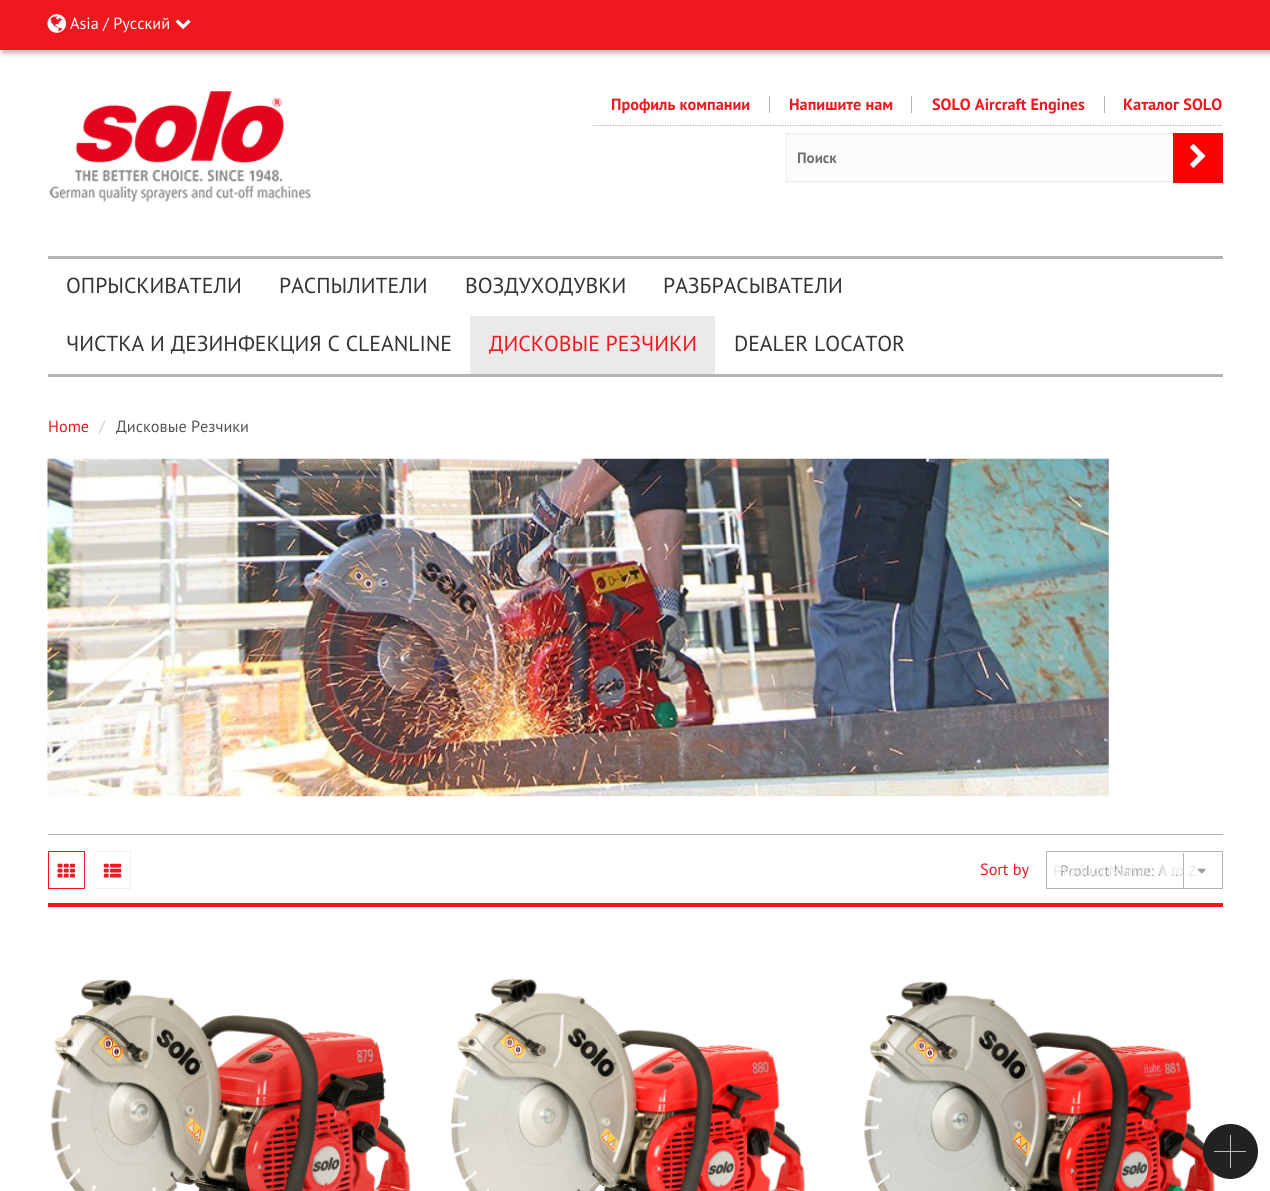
import math
import cairo

surface = cairo.ImageSurface(cairo.FORMAT_RGB24, 1270, 1191)
cr = cairo.Context(surface)
options = cairo.FontOptions()
options.set_hint_metrics(cairo.HINT_METRICS_OFF)
options.set_hint_style(cairo.HINT_STYLE_NONE)
cr.set_font_options(options)
cr.set_miter_limit(4)


def rgb(code):
    cr.set_source_rgb(*(v / 255 for v in bytes.fromhex(code[-6:])))


def rrect(x, y, w, h, r):
    cr.new_sub_path()
    for i, (u, v) in enumerate([(x + w - r, y + h - r), (x + r, y + h - r), (x + r, y + r), (x + w - r, y + r)]):
        cr.arc(u, v, r, i * math.pi / 2, (i + 1) * math.pi / 2)
    cr.close_path()


def soft_shadow(x, y, w, h, r, blur, alpha):
    cr.push_group_with_content(cairo.CONTENT_ALPHA)
    cr.set_operator(cairo.OPERATOR_SOURCE)
    for i in range(15, -16, -2):
        e = blur * i / 6
        if min(w, h) + 2 * e > 0:
            cr.set_source_rgba(0, 0, 0, alpha * math.erfc((i - 1) / 8.5) / 2)
            rrect(x - e, y - e, w + 2 * e, h + 2 * e, max(0, min(r + e + blur * .6, min(w, h) / 2 + e)))
            cr.fill()
    cr.mask(cr.pop_group())


def image(path, x, y, w, h):
    cr.save()
    cr.set_source_surface(cairo.ImageSurface.create_from_png(path), x, y)
    cr.rectangle(x, y, w, h)
    cr.fill()
    cr.restore()


rgb("#ffffff")
cr.paint()
rgb("#b1b3b4")
soft_shadow(3, 3, 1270, 50, 0, 3, 1)
rgb("#ef181e")
cr.rectangle(0, 0, 1270, 50)
cr.fill()
image("img/1.png", 47, 14, 20, 19)
image("img/2.png", 175, 19, 16, 10)
image("img/3.png", 49, 91, 262, 111)
cr.new_path()
cr.move_to(592.5, 125.5)
cr.line_to(1222.5, 125.5)
rgb("#b1b3b4")
cr.set_line_width(1.2)
cr.set_dash([1.25, 1.25])
cr.stroke()
for x, y, w, h, color in [
    (769, 96, 1, 17, "#b1b3b4"),
    (911, 96, 1, 17, "#b1b3b4"),
    (1104, 96, 1, 17, "#b1b3b4"),
    (787, 134, 386, 49, "#fcfcfc"),
    (786, 133, 387, 1, "#ececec"),
    (786, 181, 387, 1, "#ececec"),
    (786, 133, 1, 50, "#ececec"),
    (1173, 133, 50, 50, "#ff0000"),
]:
    rgb(color)
    cr.rectangle(x, y, w, h)
    cr.fill()
image("img/4.png", 1190, 144, 16, 24)
for x, y, w, h, color in [
    (48, 256, 1175, 3, "#b1b3b4"),
    (48, 374, 1175, 3, "#b1b3b4"),
    (470, 316, 245, 58, "#eaeaea"),
    (48, 834, 1175, 1, "#b1b3b4"),
]:
    rgb(color)
    cr.rectangle(x, y, w, h)
    cr.fill()
image("img/5.png", 47, 458, 1062, 339)
rgb("#ef181e")
cr.rectangle(48, 903, 1175, 4)
cr.fill()
cr.rectangle(48.5, 851.5, 36, 37)
cr.set_line_width(1)
cr.set_dash([])
cr.stroke()
image("img/6.png", 57, 863, 18, 15)
cr.rectangle(94.5, 851.5, 36, 37)
rgb("#efefef")
cr.stroke()
image("img/7.png", 103, 863, 19, 15)
cr.rectangle(1046.5, 851.5, 176, 37)
rgb("#b1b3b4")
cr.stroke()
image("img/8.png", 1197, 868, 9, 6)
cr.new_path()
cr.move_to(1206, 869)
cr.line_to(1211, 874)
cr.line_to(1216, 869)
rgb("#ffffff")
cr.set_line_width(2.5)
cr.stroke()
rgb("#b1b3b4")
cr.rectangle(1183, 853, 1, 35)
cr.fill()
image("img/9.png", 50, 979, 361, 212)
image("img/10.png", 451, 979, 354, 212)
image("img/11.png", 864, 981, 351, 210)
rgb("#222222")
cr.arc(1230.5, 1151.5, 27.5, 0, 2 * math.pi)
cr.fill()
for x, y, w, h, color in [
    (1214, 1151, 32, 1, "#bdbdbd"),
    (1230, 1135, 1, 33, "#bdbdbd"),
    (1230, 1151, 1, 1, "#ebebeb"),
]:
    rgb(color)
    cr.rectangle(x, y, w, h)
    cr.fill()
cr.select_font_face("PT Sans")
cr.set_font_size(16.25)
rgb("#ffffff")
cr.move_to(70, 29)
cr.show_text("Asia / Русский")
cr.select_font_face("PT Sans", cairo.FONT_SLANT_NORMAL, cairo.FONT_WEIGHT_BOLD)
rgb("#ef181e")
for x, y, s in [
    (611, 110, "Профиль компании"),
    (789, 110, "Напишите нам"),
    (932, 110, "SOLO Aircraft Engines"),
    (1123, 110, "Каталог SOLO"),
]:
    cr.move_to(x, y)
    cr.show_text(s)
cr.save()
cr.rectangle(798, 148, 325, 18)
cr.clip()
cr.set_font_size(15)
rgb("#6f6e73")
cr.move_to(797, 163)
cr.show_text("Поиск")
cr.restore()
cr.select_font_face("PT Sans")
cr.set_font_size(21.7)
rgb("#333333")
for x, y, s in [
    (66, 293, "ОПРЫСКИВАТЕЛИ"),
    (279, 293, "РАСПЫЛИТЕЛИ"),
    (465, 293, "ВОЗДУХОДУВКИ"),
    (663, 293, "РАЗБРАСЫВАТЕЛИ"),
    (66, 351, "ЧИСТКА И ДЕЗИНФЕКЦИЯ С CLEANLINE"),
]:
    cr.move_to(x, y)
    cr.show_text(s)
rgb("#ef181e")
cr.move_to(489, 351)
cr.show_text("ДИСКОВЫЕ РЕЗЧИКИ")
rgb("#333333")
cr.move_to(734, 351)
cr.show_text("DEALER LOCATOR")
cr.set_font_size(16.25)
rgb("#ef181e")
cr.move_to(48, 432)
cr.show_text("Home")
rgb("#cccccc")
cr.move_to(99, 432)
cr.show_text("/")
rgb("#555555")
cr.move_to(116, 432)
cr.show_text("Дисковые Резчики")
rgb("#ef181e")
cr.move_to(980, 875)
cr.show_text("Sort by")
cr.set_font_size(15)
rgb("#9f9f9f")
cr.move_to(1060, 876)
cr.show_text("Product Name: A …")
cr.select_font_face("Liberation Sans")
rgb("#e8e8e8")
cr.move_to(1053, 876)
cr.show_text("Product Name: A to Z")
surface.write_to_png("page.png")
